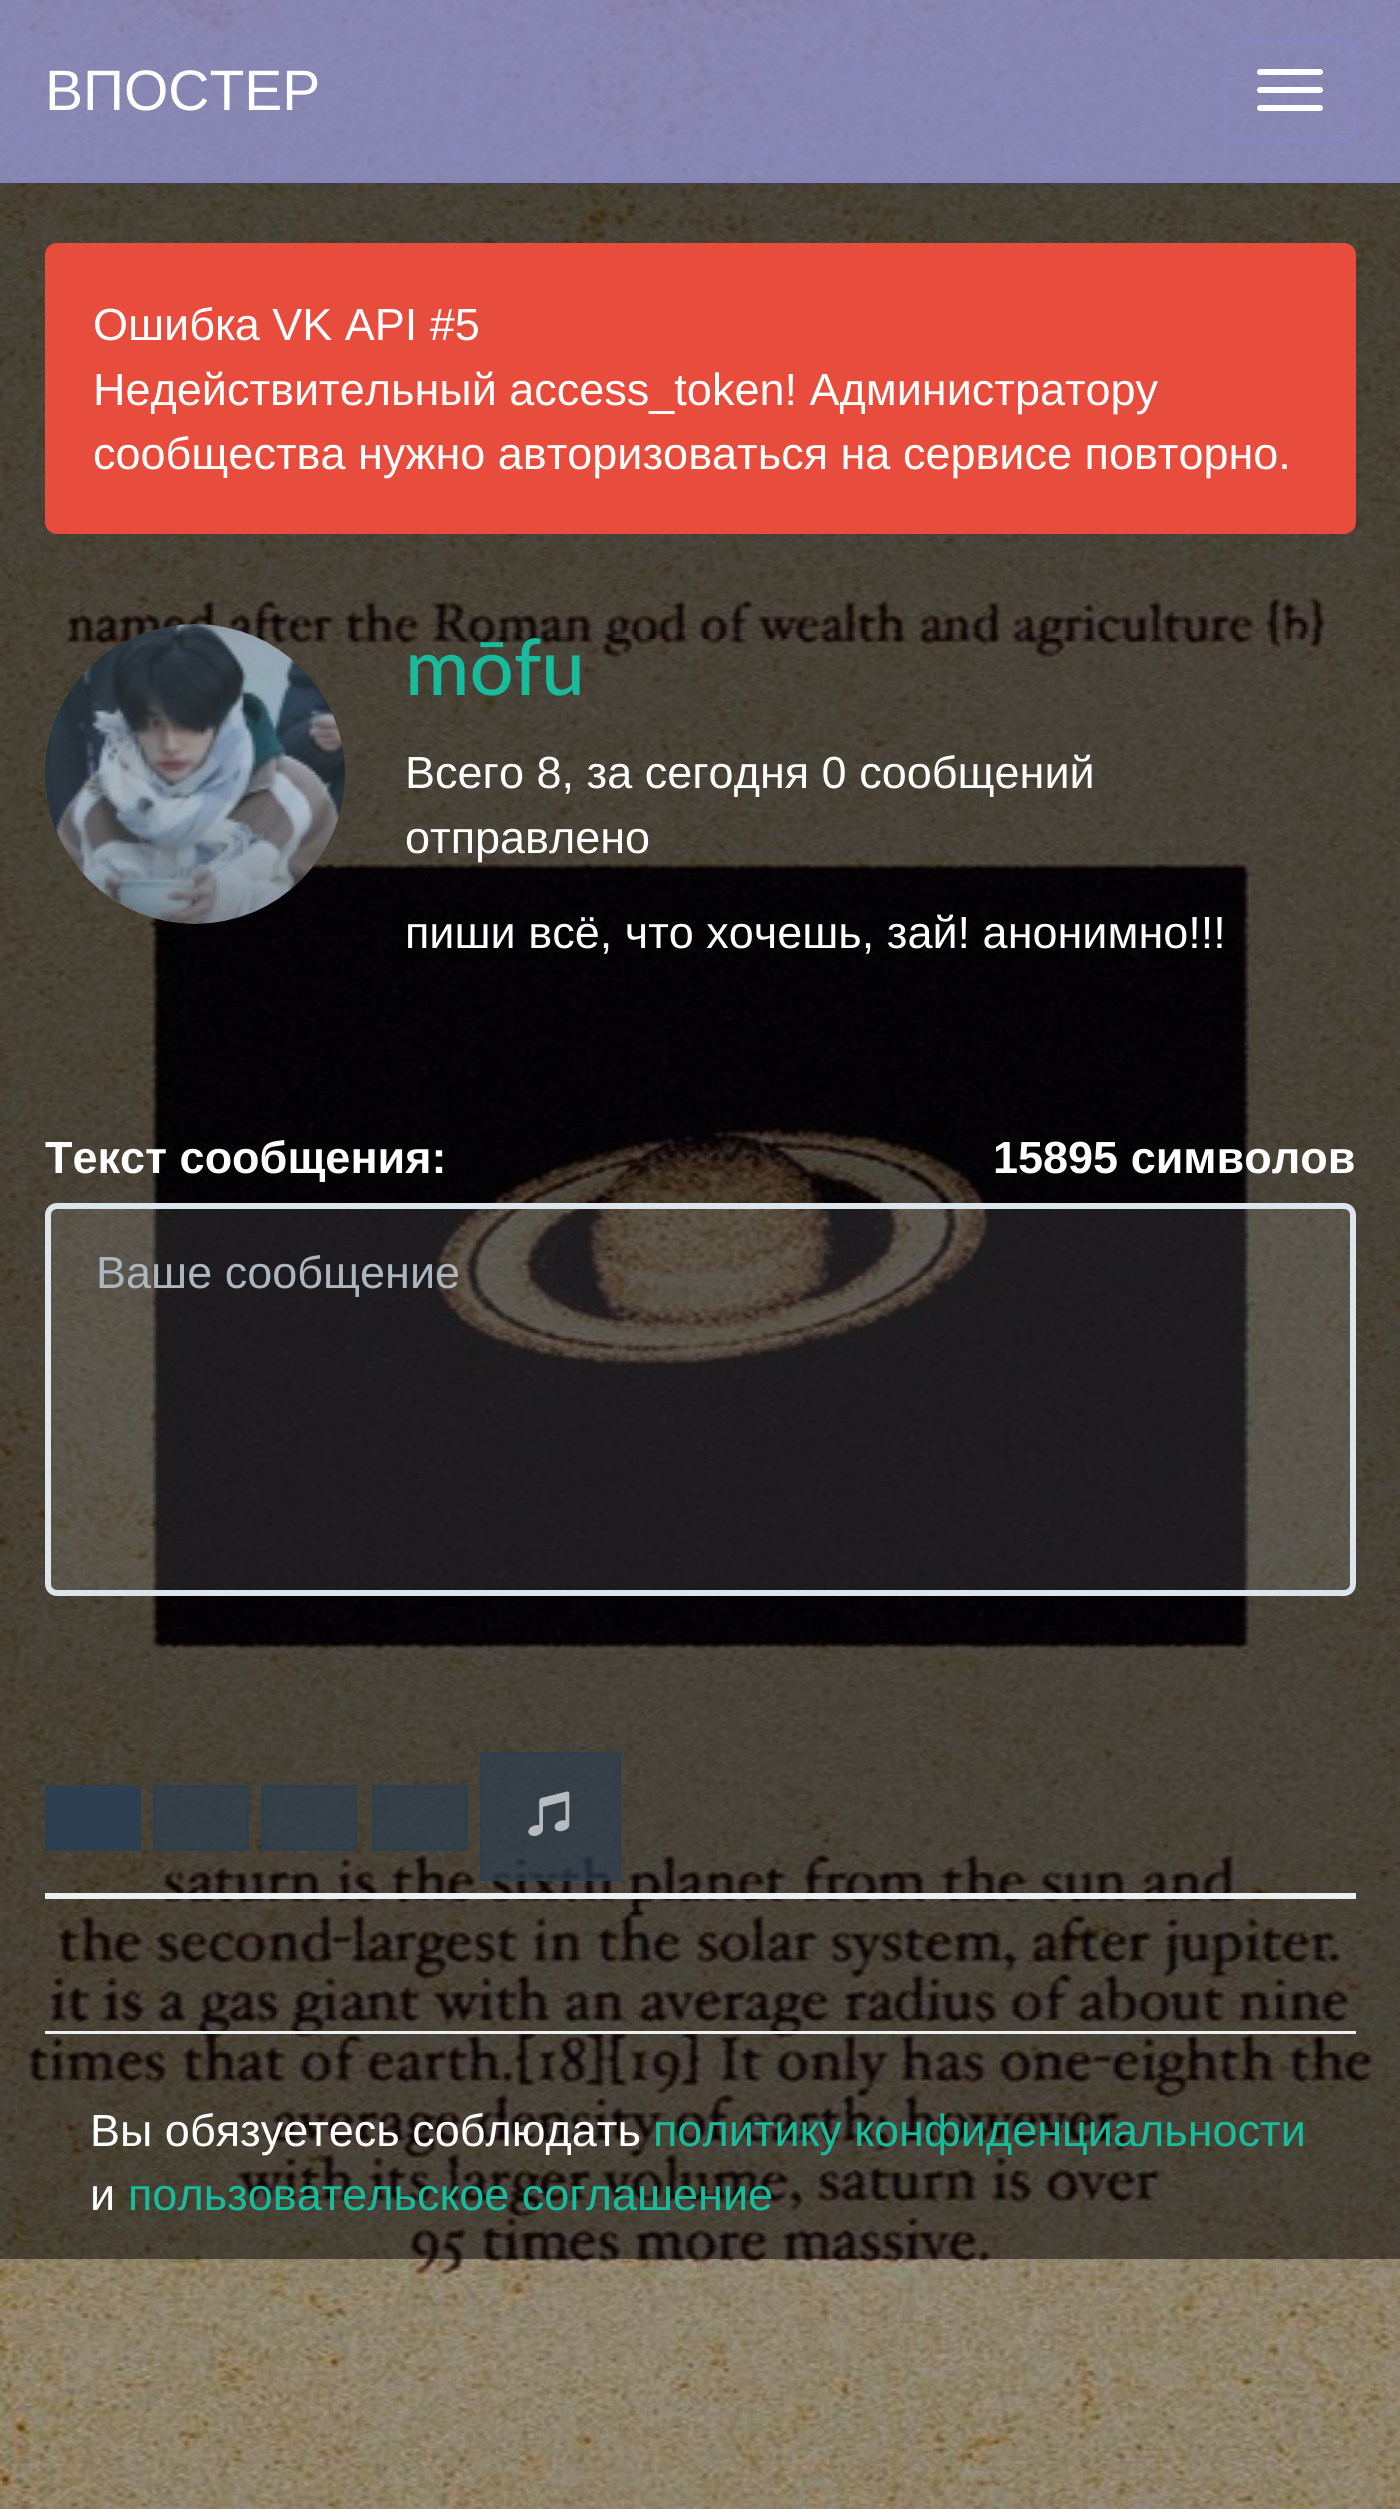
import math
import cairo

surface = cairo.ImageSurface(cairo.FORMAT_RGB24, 1400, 2509)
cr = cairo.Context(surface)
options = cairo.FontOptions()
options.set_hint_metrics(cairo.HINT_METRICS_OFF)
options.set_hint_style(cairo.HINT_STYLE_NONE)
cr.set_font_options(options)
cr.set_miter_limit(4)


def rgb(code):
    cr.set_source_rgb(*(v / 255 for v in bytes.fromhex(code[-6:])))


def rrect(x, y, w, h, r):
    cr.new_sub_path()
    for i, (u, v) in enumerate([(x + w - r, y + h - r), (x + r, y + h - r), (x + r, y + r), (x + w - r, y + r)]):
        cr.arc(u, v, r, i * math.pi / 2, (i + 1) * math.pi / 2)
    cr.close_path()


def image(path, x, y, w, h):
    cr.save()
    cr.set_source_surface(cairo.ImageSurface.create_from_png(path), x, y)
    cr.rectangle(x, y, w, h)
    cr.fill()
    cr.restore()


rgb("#ffffff")
cr.paint()
image("img/1.png", 0, 0, 1400, 2509)
cr.set_source_rgba(0, 0, 0, 0.5)
cr.rectangle(0, 180, 1400, 2079)
cr.fill()
cr.set_source_rgba(0.525, 0.529, 0.765, 0.82)
cr.rectangle(0, 0, 1400, 183)
cr.fill()
cr.rectangle(0, 180, 1400, 3)
cr.fill()
rrect(1225.5, 40.5, 129, 99, 10.5)
cr.set_line_width(3)
cr.stroke()
rgb("#ffffff")
rrect(1257, 69, 66, 6, 3)
cr.fill()
rrect(1257, 87, 66, 6, 3)
cr.fill()
rrect(1257, 105, 66, 6, 3)
cr.fill()
rgb("#e74c3c")
rrect(46.5, 244.5, 1308, 288, 10.5)
cr.fill_preserve()
cr.stroke()
image("img/2.png", 45, 624, 300, 300)
cr.set_source_rgba(1, 1, 1, 0.1)
rrect(48, 1206, 1305, 387, 9)
cr.fill_preserve()
rgb("#dce4ec")
cr.set_line_width(6)
cr.stroke()
rgb("#2c3e50")
cr.rectangle(45, 1785, 96, 66)
cr.fill()
cr.set_source_rgba(0.173, 0.243, 0.314, 0.65)
cr.rectangle(153, 1785, 96, 66)
cr.fill()
cr.rectangle(154.5, 1786.5, 93, 63)
cr.set_line_width(3)
cr.stroke()
cr.rectangle(261, 1785, 96, 66)
cr.fill()
cr.rectangle(262.5, 1786.5, 93, 63)
cr.stroke()
cr.rectangle(372, 1785, 96, 66)
cr.fill()
cr.rectangle(373.5, 1786.5, 93, 63)
cr.stroke()
cr.rectangle(480, 1752, 141, 129)
cr.fill()
cr.rectangle(481.5, 1753.5, 138, 126)
cr.stroke()
image("img/3.png", 528, 1791, 42, 45)
rgb("#ecf0f1")
cr.rectangle(45, 1893, 1311, 6)
cr.fill()
cr.rectangle(45, 2031, 1311, 3)
cr.fill()
cr.select_font_face("Liberation Sans")
cr.set_font_size(57)
rgb("#ffffff")
cr.move_to(45, 110)
cr.show_text("ВПОСТЕР")
cr.set_font_size(45)
for x, y, s in [
    (93, 340, "Ошибка VK API #5"),
    (93, 405, "Недействительный access_token! Администратору"),
    (93, 469, "сообщества нужно авторизоваться на сервисе повторно."),
]:
    cr.move_to(x, y)
    cr.show_text(s)
cr.select_font_face("Lato Medium")
cr.set_font_size(78)
rgb("#18bc9c")
cr.move_to(405, 695)
cr.show_text("mōfu")
cr.select_font_face("Liberation Sans")
cr.set_font_size(45)
rgb("#ffffff")
for x, y, s in [
    (405, 788, "Всего 8, за сегодня 0 сообщений"),
    (405, 853, "отправлено"),
    (405, 948, "пиши всё, что хочешь, зай! анонимно!!!"),
]:
    cr.move_to(x, y)
    cr.show_text(s)
cr.select_font_face("Liberation Sans", cairo.FONT_SLANT_NORMAL, cairo.FONT_WEIGHT_BOLD)
cr.move_to(45, 1173)
cr.show_text("Текст сообщения:")
cr.move_to(993, 1173)
cr.show_text("15895 символов")
cr.select_font_face("Liberation Sans")
rgb("#acb6c0")
cr.move_to(96, 1288)
cr.show_text("Ваше сообщение")
rgb("#ffffff")
cr.move_to(90, 2146)
cr.show_text("Вы обязуетесь соблюдать")
rgb("#18bc9c")
cr.move_to(653, 2146)
cr.show_text("политику конфиденциальности")
rgb("#ffffff")
cr.move_to(90, 2210)
cr.show_text("и")
rgb("#18bc9c")
cr.move_to(128, 2210)
cr.show_text("пользовательское соглашение")
surface.write_to_png("page.png")
